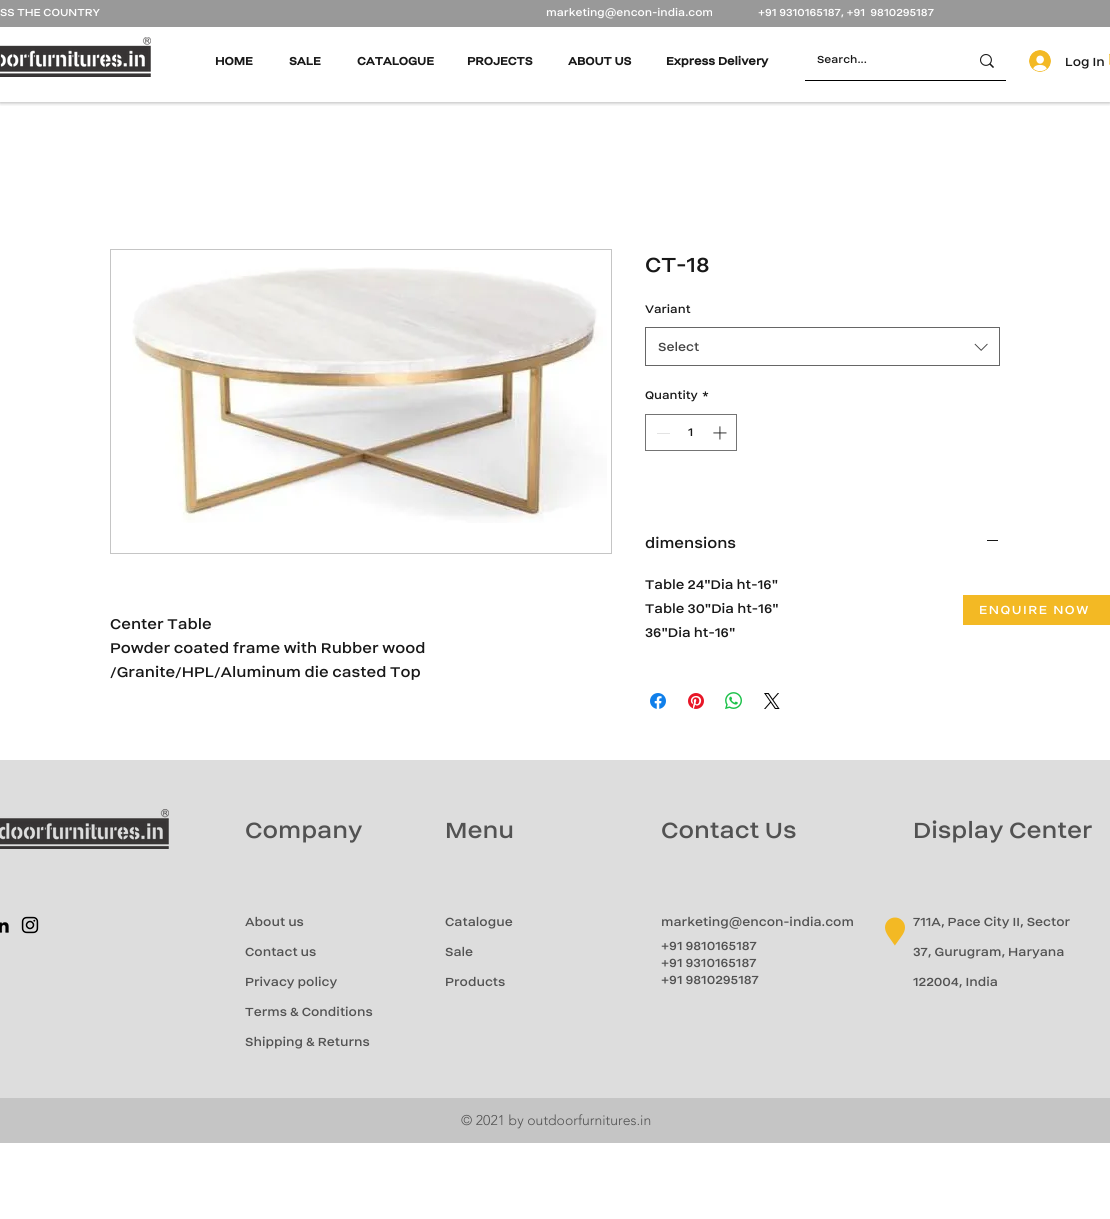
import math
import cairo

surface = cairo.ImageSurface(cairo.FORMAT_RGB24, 1110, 1219)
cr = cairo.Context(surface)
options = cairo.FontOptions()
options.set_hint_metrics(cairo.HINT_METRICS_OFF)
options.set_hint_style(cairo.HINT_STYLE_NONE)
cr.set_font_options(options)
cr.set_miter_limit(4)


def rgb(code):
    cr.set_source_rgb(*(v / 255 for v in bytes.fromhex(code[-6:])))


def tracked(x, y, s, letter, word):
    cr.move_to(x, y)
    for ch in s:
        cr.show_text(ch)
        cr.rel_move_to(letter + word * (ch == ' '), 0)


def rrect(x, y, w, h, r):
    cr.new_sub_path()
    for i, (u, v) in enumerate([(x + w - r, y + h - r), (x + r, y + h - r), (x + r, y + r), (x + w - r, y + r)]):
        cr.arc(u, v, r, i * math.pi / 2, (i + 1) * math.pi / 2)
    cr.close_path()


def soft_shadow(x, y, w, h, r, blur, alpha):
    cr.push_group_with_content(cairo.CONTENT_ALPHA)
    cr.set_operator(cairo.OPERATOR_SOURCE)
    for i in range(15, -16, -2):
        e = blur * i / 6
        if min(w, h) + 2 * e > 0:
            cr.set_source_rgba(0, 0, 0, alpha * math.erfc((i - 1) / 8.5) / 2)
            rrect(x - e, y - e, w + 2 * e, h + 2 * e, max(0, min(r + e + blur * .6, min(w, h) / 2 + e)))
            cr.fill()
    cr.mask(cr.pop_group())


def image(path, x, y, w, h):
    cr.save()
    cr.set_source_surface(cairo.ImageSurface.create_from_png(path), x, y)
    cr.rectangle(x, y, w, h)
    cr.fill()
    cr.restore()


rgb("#ffffff")
cr.paint()
cr.save()
cr.rectangle(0, 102, 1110, 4)
cr.clip()
rgb("#000000")
soft_shadow(0, 1, 1110, 102, 0, 2, 0.29)
cr.restore()
rgb("#999999")
cr.rectangle(0, 0, 1110, 27)
cr.fill()
image("img/1.png", 0, 37, 151, 40)
rgb("#000000")
cr.rectangle(805, 80, 201, 1)
cr.fill()
image("img/2.png", 980, 54, 14, 14)
image("img/3.png", 1029, 50, 22, 22)
image("img/4.png", 1109, 53, 1, 12)
cr.rectangle(645.5, 327.5, 354, 38)
rgb("#666666")
cr.set_line_width(1)
cr.stroke()
image("img/5.png", 974, 343, 14, 8)
cr.rectangle(645.5, 414.5, 91, 36)
rgb("#747474")
cr.stroke()
rgb("#e3e3e3")
cr.rectangle(657, 433, 13, 1)
cr.fill()
image("img/6.png", 713, 426, 14, 14)
rgb("#181818")
cr.rectangle(987, 540, 11, 1)
cr.fill()
image("img/7.png", 650, 693, 16, 16)
image("img/8.png", 688, 693, 16, 16)
image("img/9.png", 725, 692, 17, 17)
image("img/10.png", 764, 693, 16, 16)
cr.rectangle(110.5, 249.5, 501, 304)
rgb("#c5c5c5")
cr.stroke()
image("img/11.png", 132, 267, 475, 256)
rgb("#f3b924")
cr.rectangle(963, 595, 147, 30)
cr.fill()
rgb("#dddddd")
cr.rectangle(0, 760, 1110, 338)
cr.fill()
image("img/12.png", 0, 809, 169, 40)
image("img/13.png", 0, 922, 9, 11)
image("img/14.png", 21, 916, 18, 18)
image("img/15.png", 885, 917, 20, 29)
rgb("#c5c5c5")
cr.rectangle(0, 1098, 1110, 45)
cr.fill()
cr.select_font_face("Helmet")
cr.set_font_size(13)
rgb("#ffffff")
for x, y, s in [
    (0, 16, "SS THE COUNTRY"),
    (546, 16, "marketing@encon-india.com"),
    (758, 16, "+91 9310165187, +91  9810295187"),
]:
    cr.move_to(x, y)
    cr.show_text(s)
cr.select_font_face("Helmet", cairo.FONT_SLANT_NORMAL, cairo.FONT_WEIGHT_BOLD)
cr.set_font_size(14)
rgb("#181818")
for x, y, s in [
    (215, 65, "HOME"),
    (289, 65, "SALE"),
    (357, 65, "CATALOGUE"),
    (467, 65, "PROJECTS"),
    (568, 65, "ABOUT US"),
    (666, 65, "Express Delivery"),
]:
    cr.move_to(x, y)
    cr.show_text(s)
cr.select_font_face("Helmet")
cr.set_font_size(13)
cr.move_to(817, 63)
cr.show_text("Search...")
cr.set_font_size(15)
cr.move_to(1065, 66)
cr.show_text("Log In")
cr.set_font_size(26)
cr.move_to(645, 272)
cr.show_text("CT-18")
cr.set_font_size(14)
cr.move_to(645, 313)
cr.show_text("Variant")
cr.set_font_size(15)
rgb("#444444")
cr.move_to(658, 351)
cr.show_text("Select")
cr.set_font_size(14)
rgb("#181818")
for x, y, s in [
    (645, 399, "Quantity"),
    (702, 399, "*"),
    (688, 436, "1"),
]:
    cr.move_to(x, y)
    cr.show_text(s)
cr.set_font_size(18)
cr.move_to(645, 548)
cr.show_text("dimensions")
cr.set_font_size(16)
for x, y, s in [
    (645, 589, "Table 24\"Dia ht-16\""),
    (645, 613, "Table 30\"Dia ht-16\""),
    (645, 637, "36\"Dia ht-16\""),
]:
    cr.move_to(x, y)
    cr.show_text(s)
cr.set_font_size(18)
for x, y, s in [
    (110, 629, "Center Table"),
    (110, 653, "Powder coated frame with Rubber wood"),
    (110, 677, "/Granite/HPL/Aluminum die casted Top"),
]:
    cr.move_to(x, y)
    cr.show_text(s)
cr.set_font_size(15)
rgb("#ffffff")
tracked(979, 614, "ENQUIRE NOW", 1.5, 0)
cr.set_font_size(28)
rgb("#525252")
for x, y, s in [
    (245, 838, "Company"),
    (445, 838, "Menu"),
    (661, 838, "Contact Us"),
    (913, 838, "Display Center"),
]:
    cr.move_to(x, y)
    cr.show_text(s)
cr.set_font_size(15)
for x, y, s in [
    (245, 926, "About us"),
    (245, 956, "Contact us"),
    (245, 986, "Privacy policy"),
    (245, 1016, "Terms & Conditions"),
    (245, 1046, "Shipping & Returns"),
    (445, 926, "Catalogue"),
    (445, 956, "Sale"),
    (445, 986, "Products"),
    (661, 926, "marketing@encon-india.com"),
    (661, 950, "+91 9810165187"),
    (661, 967, "+91 9310165187"),
    (661, 984, "+91 9810295187"),
    (913, 926, "711A, Pace City II, Sector"),
    (913, 956, "37, Gurugram, Haryana"),
    (913, 986, "122004, India"),
]:
    cr.move_to(x, y)
    cr.show_text(s)
cr.select_font_face("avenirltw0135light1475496 Light")
cr.set_font_size(14)
cr.move_to(461, 1125)
cr.show_text("© 2021 by outdoorfurnitures.in")
surface.write_to_png("page.png")
